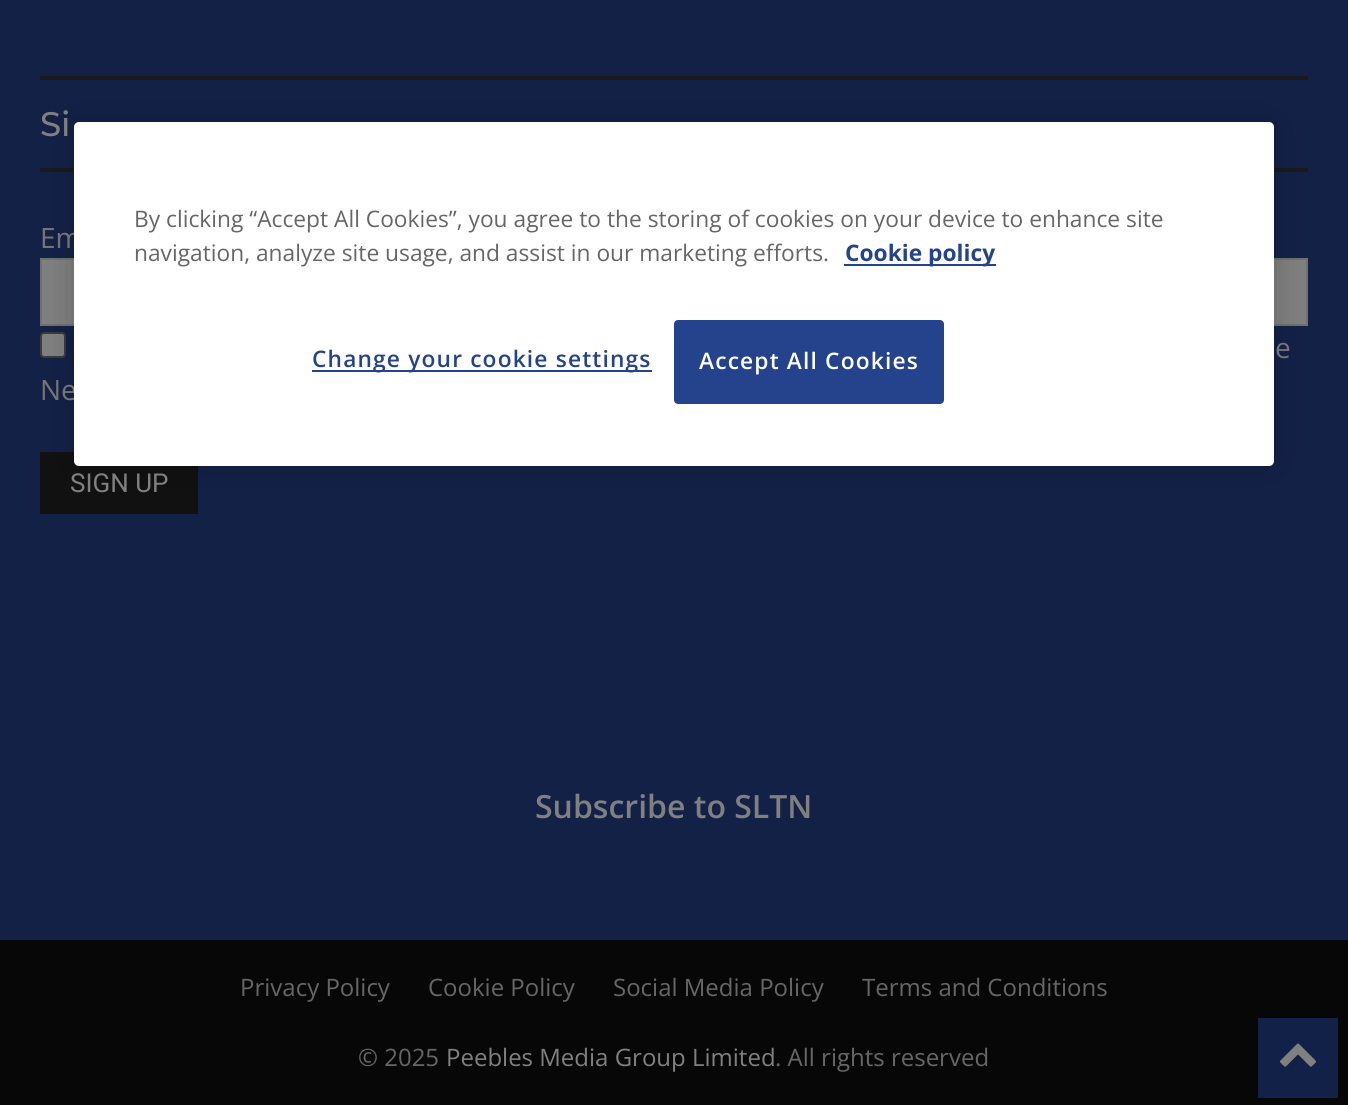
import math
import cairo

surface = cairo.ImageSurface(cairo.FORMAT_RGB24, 1348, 1105)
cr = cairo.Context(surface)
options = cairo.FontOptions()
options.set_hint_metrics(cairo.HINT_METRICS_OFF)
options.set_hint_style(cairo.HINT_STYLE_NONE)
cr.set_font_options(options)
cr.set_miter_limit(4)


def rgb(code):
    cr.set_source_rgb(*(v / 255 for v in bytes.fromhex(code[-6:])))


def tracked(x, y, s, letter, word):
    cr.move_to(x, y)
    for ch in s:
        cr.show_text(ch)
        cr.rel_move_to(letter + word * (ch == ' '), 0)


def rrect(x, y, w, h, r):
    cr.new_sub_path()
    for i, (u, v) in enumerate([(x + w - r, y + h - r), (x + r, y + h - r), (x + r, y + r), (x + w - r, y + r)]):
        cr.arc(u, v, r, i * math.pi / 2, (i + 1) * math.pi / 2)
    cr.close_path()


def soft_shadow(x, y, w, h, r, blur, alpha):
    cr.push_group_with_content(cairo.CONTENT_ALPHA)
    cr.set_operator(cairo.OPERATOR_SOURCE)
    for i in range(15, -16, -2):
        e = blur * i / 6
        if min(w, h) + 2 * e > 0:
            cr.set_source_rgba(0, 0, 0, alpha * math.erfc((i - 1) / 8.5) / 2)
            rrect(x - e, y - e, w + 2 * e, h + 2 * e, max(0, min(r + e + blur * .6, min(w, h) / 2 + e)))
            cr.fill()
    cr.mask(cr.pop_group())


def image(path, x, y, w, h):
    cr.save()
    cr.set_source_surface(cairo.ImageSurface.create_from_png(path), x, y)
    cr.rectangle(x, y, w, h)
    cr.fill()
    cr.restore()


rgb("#070707")
cr.paint()
for x, y, w, h, color in [
    (0, 0, 1348, 940, "#142147"),
    (40, 76, 1268, 4, "#1a1a1a"),
    (40, 168, 1268, 4, "#1a1a1a"),
]:
    rgb(color)
    cr.rectangle(x, y, w, h)
    cr.fill()
rgb("#808080")
cr.rectangle(41, 259, 1266, 66)
cr.fill_preserve()
rgb("#717171")
cr.stroke()
rgb("#808080")
rrect(41, 333, 24, 24, 3)
cr.fill_preserve()
rgb("#3b3b3b")
cr.stroke()
rgb("#111111")
cr.rectangle(40, 452, 158, 62)
cr.fill()
rgb("#000000")
soft_shadow(74, 122, 1200, 344, 5, 18, 0.2)
rgb("#122148")
cr.rectangle(1258, 1018, 80, 80)
cr.fill()
image("img/1.png", 1280, 1043, 36, 24)
cr.select_font_face("Montserrat Medium")
cr.set_font_size(34)
rgb("#808080")
cr.move_to(40, 136)
cr.show_text("Si")
cr.select_font_face("Open Sans")
cr.set_font_size(28)
rgb("#757575")
for x, y, s in [
    (40, 248, "Em"),
    (1275, 358, "e"),
    (40, 400, "Ne"),
]:
    cr.move_to(x, y)
    cr.show_text(s)
cr.select_font_face("Roboto")
cr.set_font_size(26)
rgb("#808080")
cr.move_to(70, 492)
cr.show_text("SIGN UP")
cr.select_font_face("Open Sans SemiBold")
cr.set_font_size(32)
cr.move_to(535, 818)
cr.show_text("Subscribe to SLTN")
cr.select_font_face("Open Sans")
cr.set_font_size(24)
rgb("#666666")
for x, y, s in [
    (240, 996, "Privacy Policy"),
    (428, 996, "Cookie Policy"),
    (613, 996, "Social Media Policy"),
    (862, 996, "Terms and Conditions"),
    (358, 1066, "© 2025"),
]:
    cr.move_to(x, y)
    cr.show_text(s)
rgb("#808080")
cr.move_to(446, 1066)
cr.show_text("Peebles Media Group Limited")
rgb("#666666")
cr.move_to(775, 1066)
cr.show_text(". All rights reserved")
rgb("#ffffff")
rrect(74, 122, 1200, 344, 5)
cr.fill()
cr.set_font_size(22.75)
rgb("#666666")
cr.move_to(134, 227)
cr.show_text("By clicking “Accept All Cookies”, you agree to the storing of cookies on your device to enhance site")
cr.move_to(134, 261)
cr.show_text("navigation, analyze site usage, and assist in our marketing efforts.")
rgb("#25438d")
cr.rectangle(844, 264, 152, 2)
cr.fill()
cr.select_font_face("Open Sans", cairo.FONT_SLANT_NORMAL, cairo.FONT_WEIGHT_BOLD)
cr.move_to(845, 261)
cr.show_text("Cookie policy")
cr.rectangle(312, 370, 340, 2)
cr.fill()
cr.select_font_face("Open Sans SemiBold")
tracked(312, 367, "Change your cookie settings", 1.15, 0)
rrect(675, 321, 268, 82, 3)
cr.fill_preserve()
cr.stroke()
rgb("#ffffff")
tracked(699, 369, "Accept All Cookies", 1.15, 0)
surface.write_to_png("page.png")
